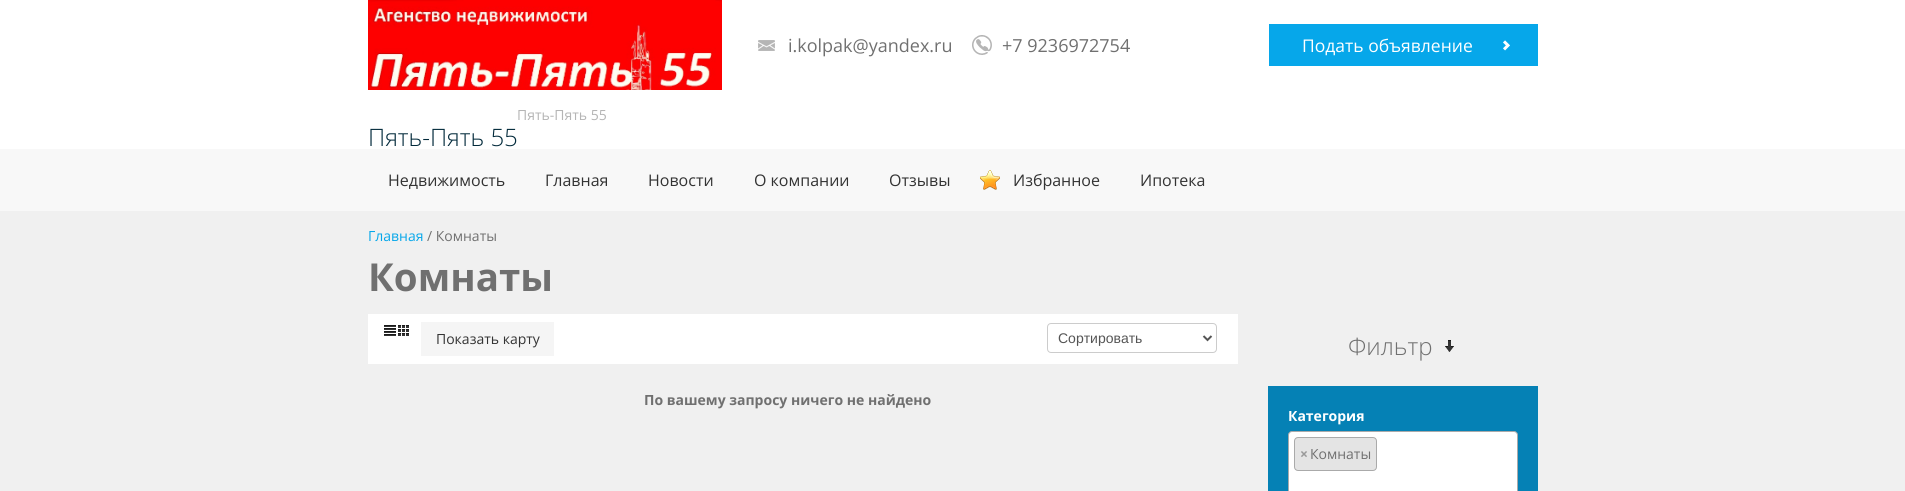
import math
import cairo

surface = cairo.ImageSurface(cairo.FORMAT_RGB24, 1905, 491)
cr = cairo.Context(surface)
options = cairo.FontOptions()
options.set_hint_metrics(cairo.HINT_METRICS_OFF)
options.set_hint_style(cairo.HINT_STYLE_NONE)
cr.set_font_options(options)
cr.set_miter_limit(4)


def rgb(code):
    cr.set_source_rgb(*(v / 255 for v in bytes.fromhex(code[-6:])))


def rrect(x, y, w, h, r):
    cr.new_sub_path()
    for i, (u, v) in enumerate([(x + w - r, y + h - r), (x + r, y + h - r), (x + r, y + r), (x + w - r, y + r)]):
        cr.arc(u, v, r, i * math.pi / 2, (i + 1) * math.pi / 2)
    cr.close_path()


def image(path, x, y, w, h):
    cr.save()
    cr.set_source_surface(cairo.ImageSurface.create_from_png(path), x, y)
    cr.rectangle(x, y, w, h)
    cr.fill()
    cr.restore()


rgb("#f0f0f0")
cr.paint()
rgb("#ffffff")
cr.rectangle(0, 0, 1905, 149)
cr.fill()
image("img/1.png", 758, 40, 17, 11)
image("img/2.png", 972, 35, 20, 20)
rgb("#06a7ea")
cr.rectangle(1269, 24, 269, 42)
cr.fill()
image("img/3.png", 1503, 40, 7, 11)
image("img/4.png", 368, 0, 354, 90)
rgb("#f8f8f8")
cr.rectangle(0, 149, 1905, 62)
cr.fill()
image("img/5.png", 980, 170, 20, 20)
rgb("#ffffff")
cr.rectangle(368, 314, 870, 50)
cr.fill()
image("img/6.png", 384, 325, 12, 11)
image("img/7.png", 398, 325, 11, 11)
rgb("#f5f5f5")
cr.rectangle(421, 322, 133, 34)
cr.fill()
rrect(1047.5, 323.5, 169, 29, 3.5)
rgb("#cccccc")
cr.set_line_width(1)
cr.stroke()
cr.new_path()
cr.move_to(1203.5, 336)
cr.line_to(1207.5, 340)
cr.line_to(1211.5, 336)
rgb("#555555")
cr.set_line_width(2)
cr.stroke()
image("img/8.png", 1445, 340, 9, 12)
rgb("#0581b5")
cr.rectangle(1268, 386, 270, 105)
cr.fill()
rgb("#ffffff")
rrect(1288.5, 431.5, 229, 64, 3.5)
cr.fill_preserve()
rgb("#aaaaaa")
cr.set_line_width(1)
cr.stroke()
rgb("#e4e4e4")
rrect(1294.5, 437.5, 82, 33, 3.5)
cr.fill_preserve()
rgb("#aaaaaa")
cr.stroke()
cr.select_font_face("Open Sans")
cr.set_font_size(18)
rgb("#707070")
cr.move_to(788, 52)
cr.show_text("i.kolpak@yandex.ru")
cr.move_to(1002, 52)
cr.show_text("+7 9236972754")
cr.set_font_size(17.5)
rgb("#ffffff")
cr.move_to(1302, 52)
cr.show_text("Подать объявление")
cr.set_font_size(14)
rgb("#b5b5b5")
cr.move_to(517, 120)
cr.show_text("Пять-Пять 55")
cr.select_font_face("Open Sans Light")
cr.set_font_size(24)
rgb("#022a3b")
cr.move_to(368, 146)
cr.show_text("Пять-Пять 55")
cr.select_font_face("Open Sans")
cr.set_font_size(16)
rgb("#333333")
for x, y, s in [
    (388, 186, "Недвижимость"),
    (545, 186, "Главная"),
    (648, 186, "Новости"),
    (754, 186, "О компании"),
    (889, 186, "Отзывы"),
    (1013, 186, "Избранное"),
    (1140, 186, "Ипотека"),
]:
    cr.move_to(x, y)
    cr.show_text(s)
cr.set_font_size(14)
rgb("#06a7ea")
cr.move_to(368, 241)
cr.show_text("Главная")
rgb("#707070")
cr.move_to(427, 241)
cr.show_text("/ Комнаты")
cr.select_font_face("Open Sans", cairo.FONT_SLANT_NORMAL, cairo.FONT_WEIGHT_BOLD)
cr.set_font_size(38.5)
cr.move_to(368, 291)
cr.show_text("Комнаты")
cr.select_font_face("Open Sans")
cr.set_font_size(14)
rgb("#333333")
cr.move_to(436, 344)
cr.show_text("Показать карту")
cr.select_font_face("Liberation Sans")
rgb("#555555")
cr.move_to(1058, 343)
cr.show_text("Сортировать")
cr.select_font_face("Open Sans", cairo.FONT_SLANT_NORMAL, cairo.FONT_WEIGHT_BOLD)
rgb("#707070")
cr.move_to(644, 405)
cr.show_text("По вашему запросу ничего не найдено")
cr.select_font_face("Open Sans Light")
cr.set_font_size(24)
cr.move_to(1348, 355)
cr.show_text("Фильтр")
cr.select_font_face("Open Sans", cairo.FONT_SLANT_NORMAL, cairo.FONT_WEIGHT_BOLD)
cr.set_font_size(14)
rgb("#ffffff")
cr.move_to(1288, 421)
cr.show_text("Категория")
rgb("#999999")
cr.move_to(1300, 459)
cr.show_text("×")
cr.select_font_face("Open Sans")
rgb("#707070")
cr.move_to(1310, 459)
cr.show_text("Комнаты")
surface.write_to_png("page.png")
